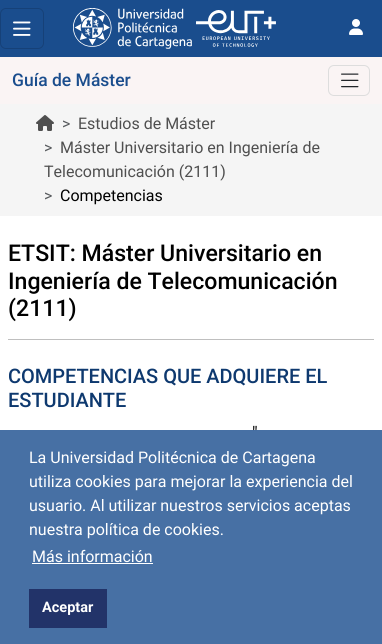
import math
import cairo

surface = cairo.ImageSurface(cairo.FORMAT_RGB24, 382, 644)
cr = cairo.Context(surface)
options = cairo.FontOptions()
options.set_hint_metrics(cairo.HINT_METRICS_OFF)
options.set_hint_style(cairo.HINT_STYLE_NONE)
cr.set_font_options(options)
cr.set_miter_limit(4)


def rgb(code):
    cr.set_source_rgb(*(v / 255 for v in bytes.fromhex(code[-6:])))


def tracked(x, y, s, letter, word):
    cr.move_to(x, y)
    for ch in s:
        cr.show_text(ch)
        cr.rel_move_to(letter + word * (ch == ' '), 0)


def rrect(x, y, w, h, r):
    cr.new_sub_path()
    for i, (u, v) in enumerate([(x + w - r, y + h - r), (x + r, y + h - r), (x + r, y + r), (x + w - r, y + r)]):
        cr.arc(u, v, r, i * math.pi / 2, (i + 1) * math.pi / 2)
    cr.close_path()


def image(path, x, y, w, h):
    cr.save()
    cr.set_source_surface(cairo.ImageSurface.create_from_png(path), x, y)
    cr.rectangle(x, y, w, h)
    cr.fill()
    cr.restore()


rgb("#ffffff")
cr.paint()
rgb("#faf4f4")
cr.rectangle(0, 57, 382, 47)
cr.fill()
rrect(328.5, 65.5, 41, 30, 5.5)
rgb("#dddddd")
cr.set_line_width(1)
cr.stroke()
image("img/1.png", 341, 73, 18, 15)
rgb("#bfbfbf")
cr.rectangle(8, 339, 366, 1)
cr.fill()
rgb("#1a4d8d")
cr.rectangle(0, 0, 382, 57)
cr.fill()
rrect(0.5, 8.5, 43, 40, 5.5)
rgb("#164178")
cr.stroke()
image("img/2.png", 13, 21, 18, 15)
image("img/3.png", 73, 8, 119, 41)
image("img/4.png", 196, 10, 80, 37)
image("img/5.png", 349, 19, 14, 16)
rgb("#f5f5f5")
cr.rectangle(0, 104, 382, 112)
cr.fill()
image("img/6.png", 36, 115, 18, 16)
cr.select_font_face("Roboto Medium")
cr.set_font_size(17.5)
rgb("#1a4d8d")
cr.move_to(12, 86)
cr.show_text("Guía de Máster")
cr.set_font_size(23.1)
rgb("#000000")
for x, y, s in [
    (8, 261, "ETSIT: Máster Universitario en"),
    (8, 289, "Ingeniería de Telecomunicación"),
    (8, 316, "(2111)"),
]:
    cr.move_to(x, y)
    cr.show_text(s)
cr.set_font_size(20)
rgb("#0e396f")
cr.move_to(8, 383)
cr.show_text("COMPETENCIAS QUE ADQUIERE EL")
cr.move_to(8, 407)
cr.show_text("ESTUDIANTE")
cr.select_font_face("Roboto")
cr.set_font_size(17.5)
rgb("#000000")
tracked(252, 439, "\"", 0, 3)
cr.set_font_size(16)
rgb("#56595c")
cr.move_to(62, 129)
cr.show_text(">")
rgb("#4f4f4f")
cr.move_to(78, 129)
cr.show_text("Estudios de Máster")
rgb("#56595c")
cr.move_to(44, 153)
cr.show_text(">")
rgb("#4f4f4f")
cr.move_to(60, 153)
cr.show_text("Máster Universitario en Ingeniería de")
cr.move_to(44, 177)
cr.show_text("Telecomunicación (2111)")
rgb("#56595c")
cr.move_to(44, 201)
cr.show_text(">")
rgb("#000000")
cr.move_to(60, 201)
cr.show_text("Competencias")
cr.set_source_rgba(0.102, 0.302, 0.553, 0.8)
cr.rectangle(0, 430, 382, 214)
cr.fill()
rgb("#ffffff")
for x, y, s in [
    (29, 463, "La Universidad Politécnica de Cartagena"),
    (29, 487, "utiliza cookies para mejorar la experiencia del"),
    (29, 511, "usuario. Al utilizar nuestros servicios aceptas"),
    (29, 535, "nuestra política de cookies."),
    (32, 562, "Más información"),
]:
    cr.move_to(x, y)
    cr.show_text(s)
cr.rectangle(32, 563, 121, 1)
cr.fill()
rgb("#223369")
cr.rectangle(29, 589, 78, 39)
cr.fill()
cr.select_font_face("Roboto", cairo.FONT_SLANT_NORMAL, cairo.FONT_WEIGHT_BOLD)
cr.set_font_size(14.5)
rgb("#ffffff")
cr.move_to(42, 612)
cr.show_text("Aceptar")
surface.write_to_png("page.png")
